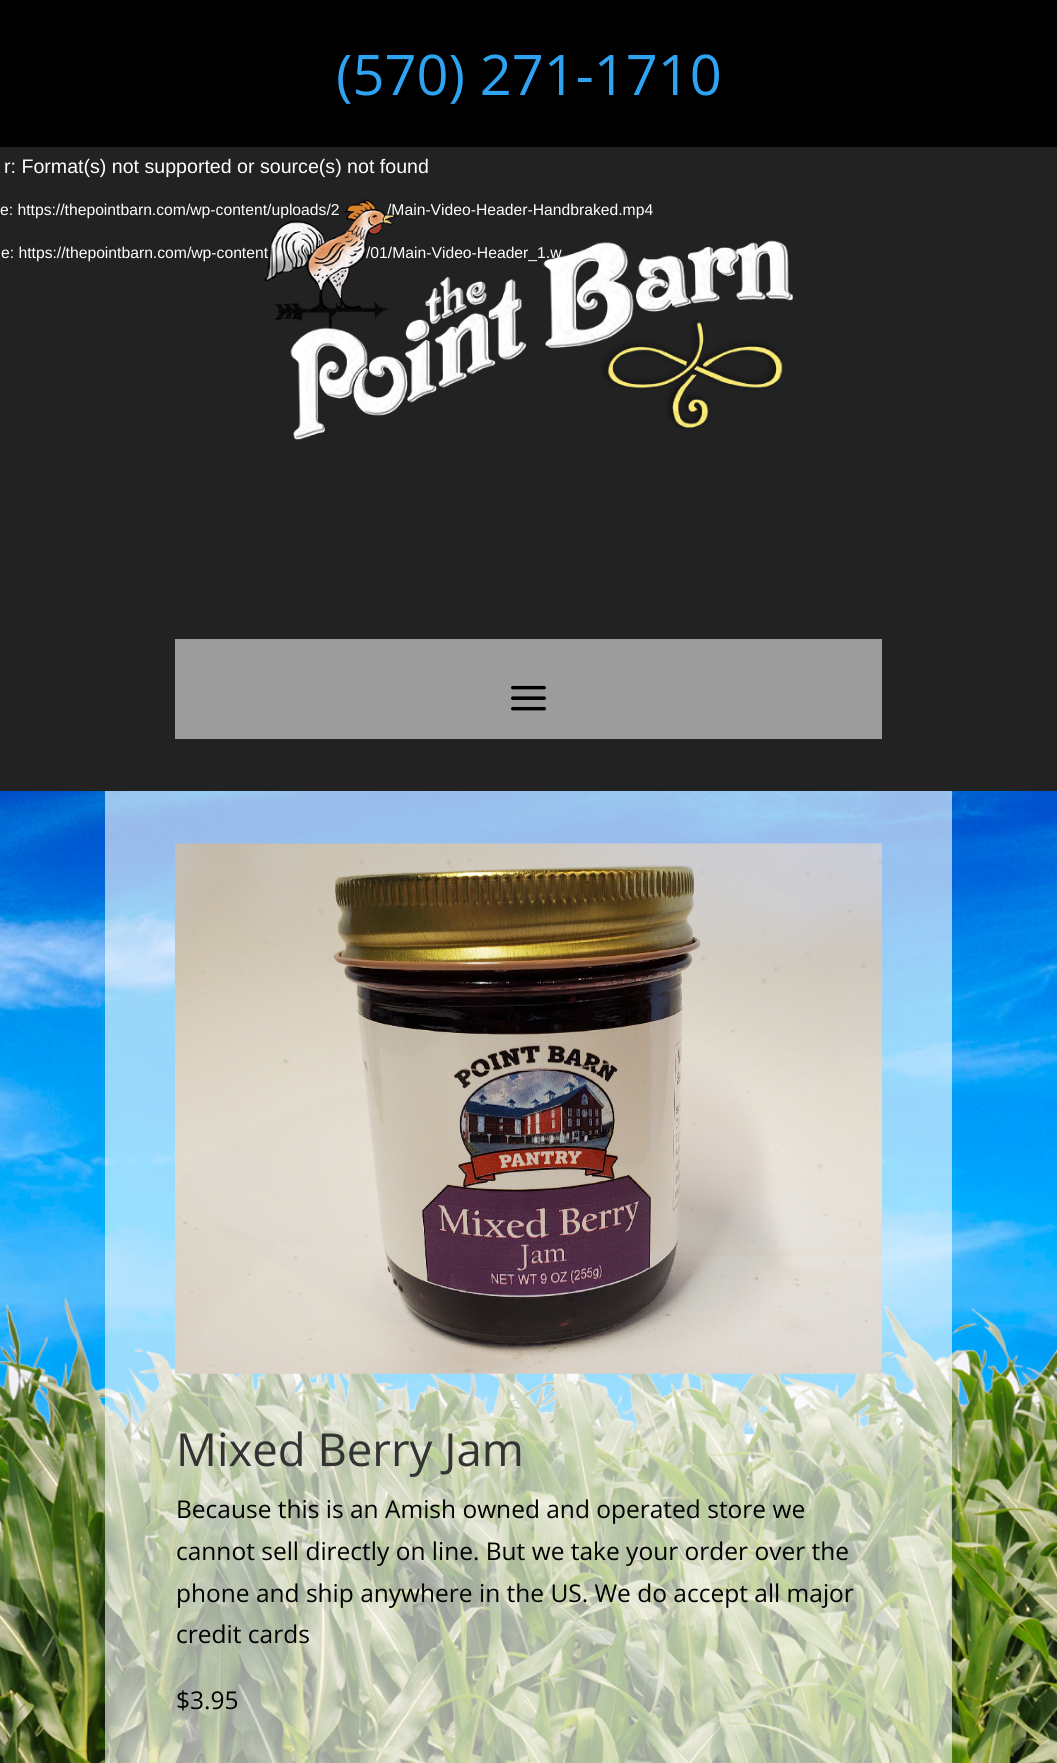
import math
import cairo

surface = cairo.ImageSurface(cairo.FORMAT_RGB24, 1057, 1763)
cr = cairo.Context(surface)
options = cairo.FontOptions()
options.set_hint_metrics(cairo.HINT_METRICS_OFF)
options.set_hint_style(cairo.HINT_STYLE_NONE)
cr.set_font_options(options)
cr.set_miter_limit(4)


def rgb(code):
    cr.set_source_rgb(*(v / 255 for v in bytes.fromhex(code[-6:])))


def image(path, x, y, w, h):
    cr.save()
    cr.set_source_surface(cairo.ImageSurface.create_from_png(path), x, y)
    cr.rectangle(x, y, w, h)
    cr.fill()
    cr.restore()


rgb("#ffffff")
cr.paint()
for x, y, w, h, color in [
    (0, 0, 1057, 147, "#000000"),
    (0, 147, 1057, 644, "#222222"),
    (175, 639, 707, 100, "#9c9c9c"),
]:
    rgb(color)
    cr.rectangle(x, y, w, h)
    cr.fill()
image("img/2.png", 511, 685, 35, 26)
image("img/3.png", 0, 791, 1057, 972)
cr.set_source_rgba(1, 1, 1, 0.6)
cr.rectangle(105, 791, 847, 972)
cr.fill()
image("img/4.png", 175, 843, 707, 531)
cr.select_font_face("Open Sans")
cr.set_font_size(56)
rgb("#2ea3f2")
cr.move_to(336, 95)
cr.show_text("(570) 271-1710")
cr.select_font_face("Liberation Sans")
cr.set_font_size(19.6)
rgb("#ffffff")
cr.move_to(4, 173)
cr.show_text("r: Format(s) not supported or source(s) not found")
cr.set_font_size(15.7)
for x, y, s in [
    (0, 215, "e: https://thepointbarn.com/wp-content/uploads/2"),
    (387, 215, "/Main-Video-Header-Handbraked.mp4"),
    (1, 258, "e: https://thepointbarn.com/wp-content"),
    (366, 258, "/01/Main-Video-Header_1.w"),
]:
    cr.move_to(x, y)
    cr.show_text(s)
image("img/1.png", 264, 199, 529, 241)
cr.select_font_face("Open Sans")
cr.set_font_size(45.5)
rgb("#333333")
cr.move_to(176, 1466)
cr.show_text("Mixed Berry Jam")
cr.set_font_size(24.5)
rgb("#000000")
for x, y, s in [
    (176, 1518, "Because this is an Amish owned and operated store we"),
    (176, 1560, "cannot sell directly on line. But we take your order over the"),
    (176, 1602, "phone and ship anywhere in the US. We do accept all major"),
    (176, 1643, "credit cards"),
    (176, 1709, "$3.95"),
]:
    cr.move_to(x, y)
    cr.show_text(s)
surface.write_to_png("page.png")
